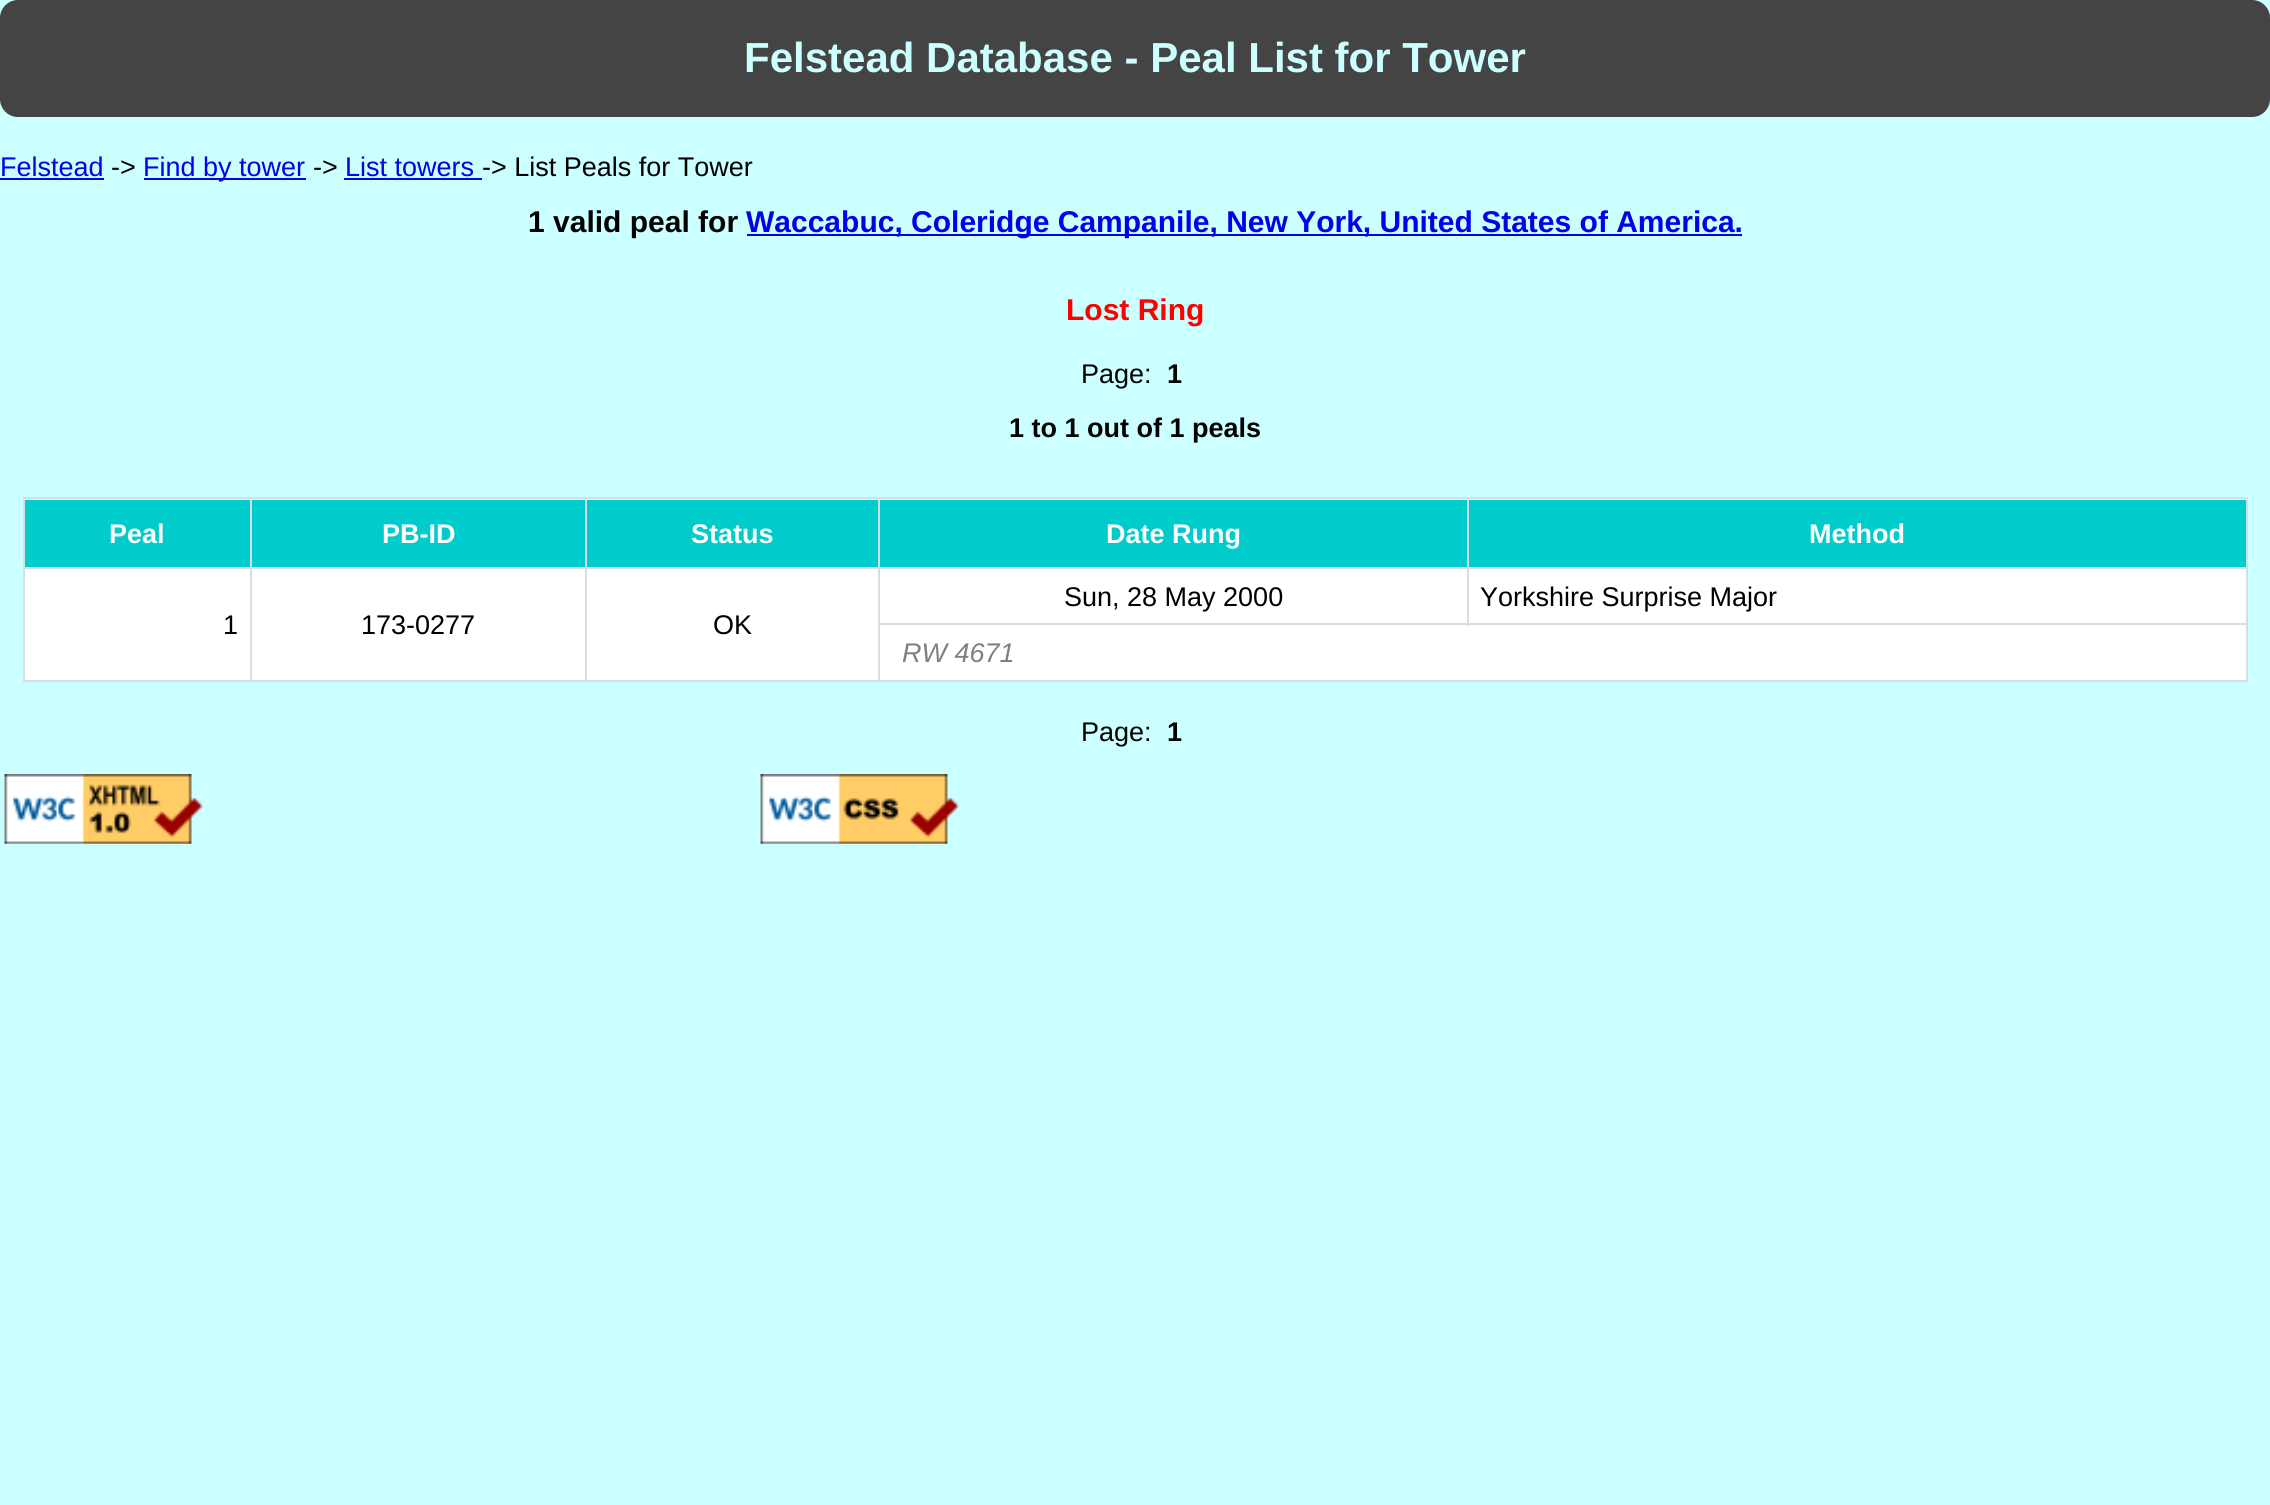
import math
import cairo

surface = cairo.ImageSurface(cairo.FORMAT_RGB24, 2270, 1505)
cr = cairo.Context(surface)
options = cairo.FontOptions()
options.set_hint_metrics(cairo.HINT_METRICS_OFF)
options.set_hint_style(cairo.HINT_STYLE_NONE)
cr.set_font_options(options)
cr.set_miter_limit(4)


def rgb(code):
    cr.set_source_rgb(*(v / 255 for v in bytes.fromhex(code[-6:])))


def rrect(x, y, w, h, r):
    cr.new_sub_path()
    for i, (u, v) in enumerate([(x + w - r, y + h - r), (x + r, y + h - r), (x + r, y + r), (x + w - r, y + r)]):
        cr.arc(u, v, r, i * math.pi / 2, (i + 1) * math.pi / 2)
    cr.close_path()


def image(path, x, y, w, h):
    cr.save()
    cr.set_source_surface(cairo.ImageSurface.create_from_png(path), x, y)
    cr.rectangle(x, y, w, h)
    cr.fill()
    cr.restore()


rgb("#ccffff")
cr.paint()
rgb("#444444")
rrect(0, 0, 2270, 117, 18)
cr.fill()
for x, y, w, h, color in [
    (0, 178, 104, 2, "#0000ee"),
    (144, 178, 162, 2, "#0000ee"),
    (344, 178, 138, 2, "#0000ee"),
    (747, 234, 995, 2, "#0000ee"),
    (23, 497, 2225, 2, "#d6dde6"),
    (2246, 497, 2, 185, "#d6dde6"),
    (23, 680, 2225, 2, "#d6dde6"),
    (23, 497, 2, 185, "#d6dde6"),
    (25, 500, 225, 67, "#00cccc"),
    (252, 500, 333, 67, "#00cccc"),
    (1467, 567, 781, 2, "#d6dde6"),
    (25, 569, 2221, 111, "#ffffff"),
    (878, 623, 1370, 2, "#d6dde6"),
    (1467, 567, 2, 59, "#d6dde6"),
    (878, 567, 591, 2, "#d6dde6"),
    (878, 623, 2, 59, "#d6dde6"),
    (878, 567, 2, 59, "#d6dde6"),
    (585, 567, 295, 2, "#d6dde6"),
    (585, 567, 2, 115, "#d6dde6"),
    (250, 567, 337, 2, "#d6dde6"),
    (250, 567, 2, 115, "#d6dde6"),
    (23, 567, 229, 2, "#d6dde6"),
    (250, 497, 2, 72, "#d6dde6"),
    (587, 500, 291, 67, "#00cccc"),
    (585, 497, 2, 72, "#d6dde6"),
    (880, 500, 587, 67, "#00cccc"),
    (878, 497, 2, 72, "#d6dde6"),
    (1469, 500, 777, 67, "#00cccc"),
    (1467, 497, 2, 72, "#d6dde6"),
]:
    rgb(color)
    cr.rectangle(x, y, w, h)
    cr.fill()
image("img/1.png", 4, 774, 199, 70)
image("img/2.png", 760, 774, 199, 70)
cr.select_font_face("Liberation Sans", cairo.FONT_SLANT_NORMAL, cairo.FONT_WEIGHT_BOLD)
cr.set_font_size(42)
rgb("#ccffff")
cr.move_to(744, 72)
cr.show_text("Felstead Database - Peal List for Tower")
cr.select_font_face("Liberation Sans")
cr.set_font_size(27)
rgb("#0000ee")
cr.move_to(0, 176)
cr.show_text("Felstead")
rgb("#000000")
cr.move_to(111, 176)
cr.show_text("->")
rgb("#0000ee")
cr.move_to(143, 176)
cr.show_text("Find by tower")
rgb("#000000")
cr.move_to(313, 176)
cr.show_text("->")
rgb("#0000ee")
cr.move_to(345, 176)
cr.show_text("List towers")
rgb("#000000")
cr.move_to(482, 176)
cr.show_text("-> List Peals for Tower")
cr.select_font_face("Liberation Sans", cairo.FONT_SLANT_NORMAL, cairo.FONT_WEIGHT_BOLD)
cr.set_font_size(30)
cr.move_to(528, 232)
cr.show_text("1 valid peal for")
rgb("#0000ee")
cr.move_to(746, 232)
cr.show_text("Waccabuc, Coleridge Campanile, New York, United States of America.")
rgb("#ff0000")
cr.move_to(1066, 320)
cr.show_text("Lost Ring")
cr.select_font_face("Liberation Sans")
cr.set_font_size(27)
rgb("#000000")
cr.move_to(1081, 383)
cr.show_text("Page:")
cr.select_font_face("Liberation Sans", cairo.FONT_SLANT_NORMAL, cairo.FONT_WEIGHT_BOLD)
cr.move_to(1167, 383)
cr.show_text("1")
cr.move_to(1009, 437)
cr.show_text("1 to 1 out of 1 peals")
rgb("#ffffff")
for x, y, s in [
    (109, 543, "Peal"),
    (382, 543, "PB-ID"),
    (691, 543, "Status"),
    (1106, 543, "Date Rung"),
    (1809, 543, "Method"),
]:
    cr.move_to(x, y)
    cr.show_text(s)
cr.select_font_face("Liberation Sans")
rgb("#000000")
for x, y, s in [
    (1064, 606, "Sun, 28 May 2000"),
    (1480, 606, "Yorkshire Surprise Major"),
    (223, 634, "1"),
    (361, 634, "173-0277"),
    (713, 634, "OK"),
]:
    cr.move_to(x, y)
    cr.show_text(s)
cr.select_font_face("Liberation Sans", cairo.FONT_SLANT_ITALIC)
rgb("#808080")
cr.move_to(902, 662)
cr.show_text("RW 4671")
cr.select_font_face("Liberation Sans")
rgb("#000000")
cr.move_to(1081, 741)
cr.show_text("Page:")
cr.select_font_face("Liberation Sans", cairo.FONT_SLANT_NORMAL, cairo.FONT_WEIGHT_BOLD)
cr.move_to(1167, 741)
cr.show_text("1")
surface.write_to_png("page.png")
